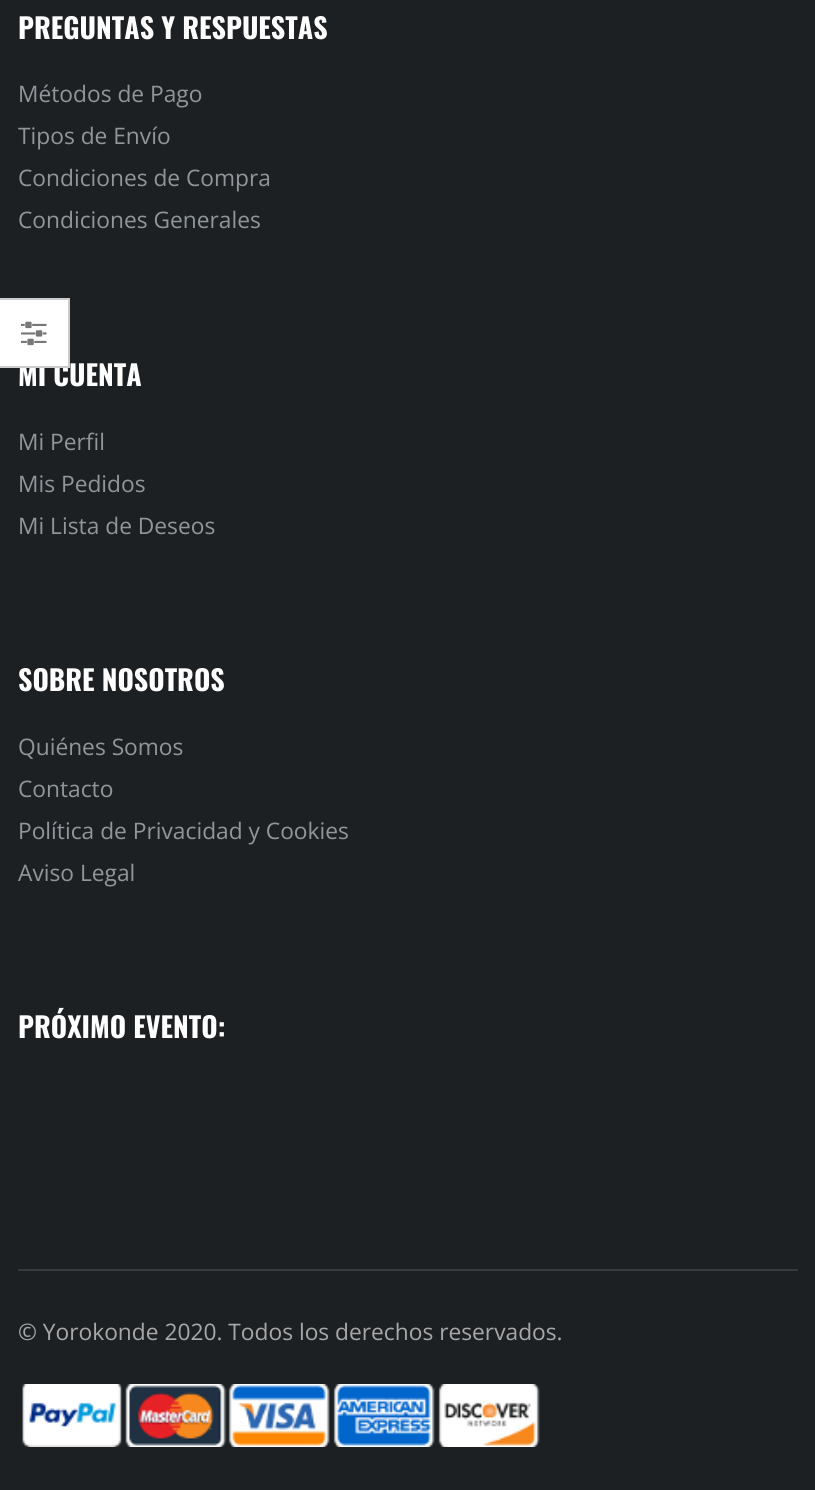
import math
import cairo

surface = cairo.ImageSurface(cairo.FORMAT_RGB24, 815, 1490)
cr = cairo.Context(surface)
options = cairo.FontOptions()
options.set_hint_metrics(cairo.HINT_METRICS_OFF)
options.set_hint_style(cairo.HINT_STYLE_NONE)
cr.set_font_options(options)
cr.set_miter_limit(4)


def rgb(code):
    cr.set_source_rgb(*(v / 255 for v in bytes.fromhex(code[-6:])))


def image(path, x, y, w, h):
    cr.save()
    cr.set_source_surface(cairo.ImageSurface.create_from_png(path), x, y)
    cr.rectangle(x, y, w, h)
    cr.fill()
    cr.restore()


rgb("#1c2023")
cr.paint()
rgb("#353a3e")
cr.rectangle(18, 1269, 780, 2)
cr.fill()
image("img/1.png", 22, 1384, 518, 63)
rgb("#ffffff")
cr.rectangle(0, 300, 68, 66)
cr.fill()
rgb("#cccccc")
cr.rectangle(0, 298, 70, 2)
cr.fill()
image("img/2.png", 21, 321, 26, 25)
cr.select_font_face("Oswald", cairo.FONT_SLANT_NORMAL, cairo.FONT_WEIGHT_BOLD)
cr.set_font_size(28)
rgb("#ffffff")
cr.move_to(18, 39)
cr.show_text("PREGUNTAS Y RESPUESTAS")
cr.select_font_face("Open Sans")
cr.set_font_size(22.75)
rgb("#90969a")
for x, y, s in [
    (18, 102, "Métodos de Pago"),
    (18, 144, "Tipos de Envío"),
    (18, 186, "Condiciones de Compra"),
    (18, 228, "Condiciones Generales"),
]:
    cr.move_to(x, y)
    cr.show_text(s)
cr.select_font_face("Oswald", cairo.FONT_SLANT_NORMAL, cairo.FONT_WEIGHT_BOLD)
cr.set_font_size(28)
rgb("#ffffff")
cr.move_to(18, 386)
cr.show_text("MI CUENTA")
cr.select_font_face("Open Sans")
cr.set_font_size(22.75)
rgb("#90969a")
for x, y, s in [
    (18, 450, "Mi Perfil"),
    (18, 492, "Mis Pedidos"),
    (18, 534, "Mi Lista de Deseos"),
]:
    cr.move_to(x, y)
    cr.show_text(s)
cr.select_font_face("Oswald", cairo.FONT_SLANT_NORMAL, cairo.FONT_WEIGHT_BOLD)
cr.set_font_size(28)
rgb("#ffffff")
cr.move_to(18, 691)
cr.show_text("SOBRE NOSOTROS")
cr.select_font_face("Open Sans")
cr.set_font_size(22.75)
rgb("#90969a")
for x, y, s in [
    (18, 755, "Quiénes Somos"),
    (18, 797, "Contacto"),
    (18, 839, "Política de Privacidad y Cookies"),
    (18, 881, "Aviso Legal"),
]:
    cr.move_to(x, y)
    cr.show_text(s)
cr.select_font_face("Oswald", cairo.FONT_SLANT_NORMAL, cairo.FONT_WEIGHT_BOLD)
cr.set_font_size(28)
rgb("#ffffff")
cr.move_to(18, 1038)
cr.show_text("PRÓXIMO EVENTO:")
cr.select_font_face("Open Sans")
cr.set_font_size(22.75)
rgb("#a8a8a8")
cr.move_to(18, 1340)
cr.show_text("© Yorokonde 2020. Todos los derechos reservados.")
rgb("#cccccc")
cr.rectangle(68, 298, 2, 70)
cr.fill()
cr.rectangle(0, 366, 70, 2)
cr.fill()
surface.write_to_png("page.png")
